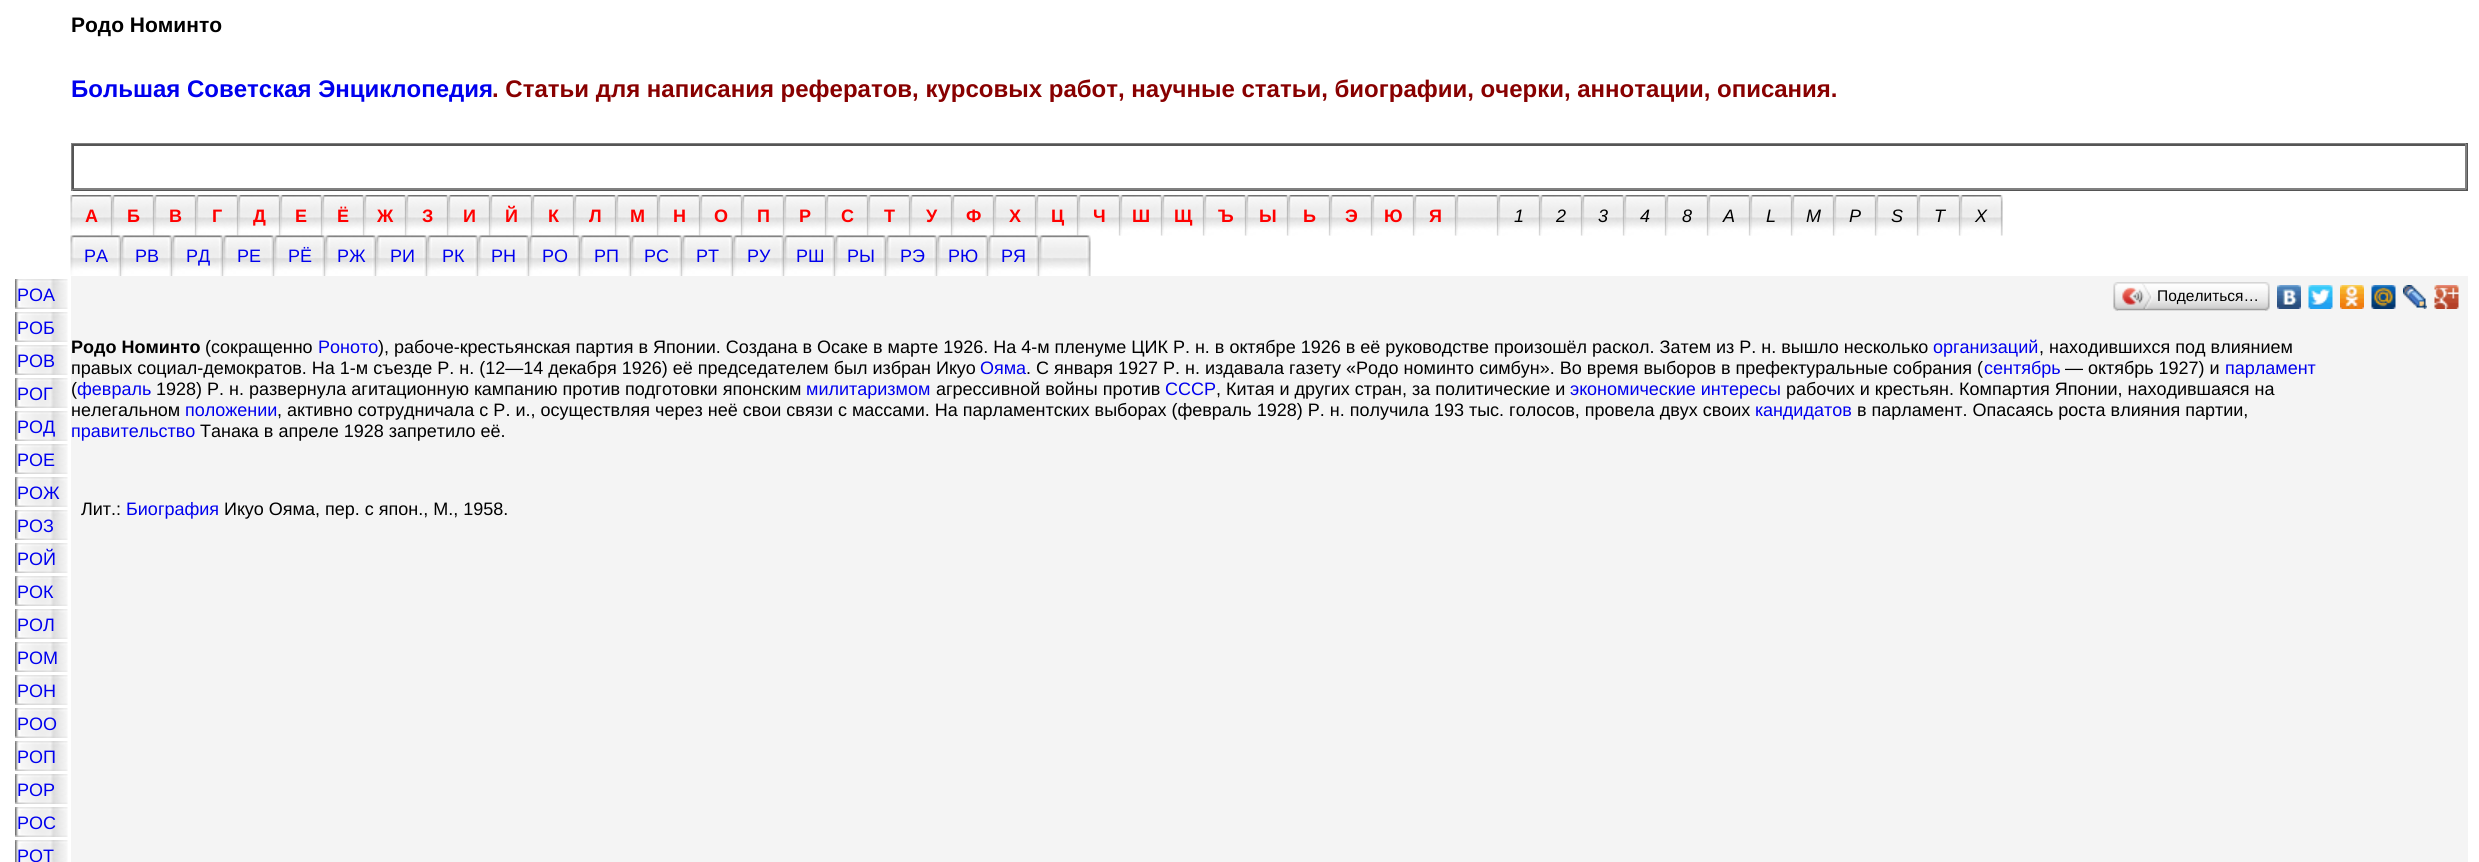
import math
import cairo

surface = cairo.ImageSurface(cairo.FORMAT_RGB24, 2479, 862)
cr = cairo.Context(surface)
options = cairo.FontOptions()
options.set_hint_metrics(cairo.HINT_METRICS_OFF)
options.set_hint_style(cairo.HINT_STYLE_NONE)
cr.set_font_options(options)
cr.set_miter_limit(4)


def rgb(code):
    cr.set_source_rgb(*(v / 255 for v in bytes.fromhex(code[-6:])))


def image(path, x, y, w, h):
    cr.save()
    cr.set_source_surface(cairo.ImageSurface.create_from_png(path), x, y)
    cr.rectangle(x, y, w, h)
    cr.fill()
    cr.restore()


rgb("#ffffff")
cr.paint()
for x, y, w, h, color in [
    (71, 143, 2397, 1, "#808080"),
    (2466, 143, 2, 48, "#555555"),
    (71, 189, 2397, 2, "#555555"),
    (71, 143, 2, 48, "#808080"),
    (72, 144, 2394, 2, "#555555"),
    (2465, 144, 2, 45, "#808080"),
    (72, 188, 2394, 2, "#808080"),
    (72, 144, 2, 45, "#555555"),
]:
    rgb(color)
    cr.rectangle(x, y, w, h)
    cr.fill()
image("img/1.png", 70, 195, 43, 41)
image("img/2.png", 112, 195, 43, 41)
image("img/2.png", 154, 195, 43, 41)
image("img/2.png", 196, 195, 43, 41)
image("img/2.png", 238, 195, 43, 41)
image("img/3.png", 280, 195, 43, 41)
image("img/2.png", 322, 195, 43, 41)
image("img/4.png", 364, 195, 43, 41)
image("img/4.png", 406, 195, 43, 41)
image("img/2.png", 448, 195, 43, 41)
image("img/2.png", 490, 195, 43, 41)
image("img/3.png", 532, 195, 43, 41)
image("img/4.png", 574, 195, 43, 41)
image("img/4.png", 616, 195, 43, 41)
image("img/4.png", 658, 195, 43, 41)
image("img/4.png", 700, 195, 43, 41)
image("img/5.png", 742, 195, 43, 41)
image("img/2.png", 784, 195, 43, 41)
image("img/2.png", 826, 195, 43, 41)
image("img/2.png", 868, 195, 43, 41)
image("img/2.png", 910, 195, 43, 41)
image("img/2.png", 952, 195, 43, 41)
image("img/2.png", 994, 195, 43, 41)
image("img/2.png", 1036, 195, 43, 41)
image("img/2.png", 1078, 195, 43, 41)
image("img/4.png", 1120, 195, 43, 41)
image("img/4.png", 1162, 195, 43, 41)
image("img/4.png", 1204, 195, 43, 41)
image("img/2.png", 1246, 195, 43, 41)
image("img/3.png", 1288, 195, 43, 41)
image("img/4.png", 1330, 195, 43, 41)
image("img/4.png", 1372, 195, 43, 41)
image("img/4.png", 1414, 195, 43, 41)
image("img/4.png", 1456, 195, 43, 41)
image("img/6.png", 1498, 195, 43, 41)
image("img/2.png", 1540, 195, 43, 41)
image("img/2.png", 1582, 195, 43, 41)
image("img/2.png", 1624, 195, 43, 41)
image("img/2.png", 1666, 195, 43, 41)
image("img/2.png", 1708, 195, 43, 41)
image("img/2.png", 1750, 195, 43, 41)
image("img/2.png", 1792, 195, 43, 41)
image("img/2.png", 1834, 195, 43, 41)
image("img/4.png", 1876, 195, 43, 41)
image("img/4.png", 1918, 195, 43, 41)
image("img/4.png", 1960, 195, 43, 41)
image("img/7.png", 70, 235, 52, 41)
image("img/8.png", 121, 235, 52, 41)
image("img/9.png", 172, 235, 52, 41)
image("img/10.png", 223, 235, 52, 41)
image("img/11.png", 274, 235, 52, 41)
image("img/12.png", 325, 235, 52, 41)
image("img/13.png", 376, 235, 52, 41)
image("img/14.png", 427, 235, 52, 41)
image("img/15.png", 478, 235, 52, 41)
image("img/16.png", 529, 235, 52, 41)
image("img/17.png", 580, 235, 52, 41)
image("img/18.png", 631, 235, 52, 41)
image("img/19.png", 682, 235, 52, 41)
image("img/20.png", 733, 235, 52, 41)
image("img/21.png", 784, 235, 52, 41)
image("img/8.png", 835, 235, 52, 41)
image("img/9.png", 886, 235, 52, 41)
image("img/10.png", 937, 235, 52, 41)
image("img/11.png", 988, 235, 52, 41)
image("img/12.png", 1039, 235, 52, 41)
image("img/22.png", 15, 279, 53, 30)
image("img/22.png", 15, 312, 53, 30)
image("img/22.png", 15, 345, 53, 30)
image("img/22.png", 15, 378, 53, 30)
image("img/22.png", 15, 411, 53, 30)
image("img/22.png", 15, 444, 53, 30)
image("img/22.png", 15, 477, 53, 30)
image("img/22.png", 15, 510, 53, 30)
image("img/22.png", 15, 543, 53, 30)
image("img/22.png", 15, 576, 53, 30)
image("img/22.png", 15, 609, 53, 30)
image("img/22.png", 15, 642, 53, 30)
image("img/22.png", 15, 675, 53, 30)
image("img/22.png", 15, 708, 53, 30)
image("img/22.png", 15, 741, 53, 30)
image("img/22.png", 15, 774, 53, 30)
image("img/22.png", 15, 807, 53, 30)
image("img/23.png", 15, 840, 53, 22)
rgb("#f4f4f4")
cr.rectangle(71, 276, 2397, 586)
cr.fill()
image("img/24.png", 2118, 282, 147, 29)
image("img/25.png", 2113, 282, 5, 29)
image("img/26.png", 2122, 283, 31, 26)
image("img/27.png", 2265, 282, 5, 29)
image("img/28.png", 2277, 285, 24, 24)
image("img/29.png", 2308, 285, 25, 24)
image("img/30.png", 2340, 285, 24, 24)
image("img/31.png", 2371, 285, 25, 24)
image("img/32.png", 2403, 285, 24, 24)
image("img/33.png", 2434, 285, 25, 24)
cr.select_font_face("Liberation Sans", cairo.FONT_SLANT_NORMAL, cairo.FONT_WEIGHT_BOLD)
cr.set_font_size(21)
rgb("#000000")
cr.move_to(71, 32)
cr.show_text("Родо Номинто")
cr.set_font_size(24)
rgb("#0000ee")
cr.move_to(71, 97)
cr.show_text("Большая Советская Энциклопедия")
rgb("#880000")
cr.move_to(492, 97)
cr.show_text(". Статьи для написания рефератов, курсовых работ, научные статьи, биографии, очерки, аннотации, описания.")
cr.set_font_size(18)
rgb("#ff0000")
for x, y, s in [
    (85, 222, "А"),
    (127, 222, "Б"),
    (169, 222, "В"),
    (212, 222, "Г"),
    (253, 222, "Д"),
    (295, 222, "Е"),
    (337, 222, "Ё"),
    (377, 222, "Ж"),
    (422, 222, "З"),
    (463, 222, "И"),
    (505, 222, "Й"),
    (548, 222, "К"),
    (589, 222, "Л"),
    (630, 222, "М"),
    (673, 222, "Н"),
    (714, 222, "О"),
    (757, 222, "П"),
    (799, 222, "Р"),
    (841, 222, "С"),
    (884, 222, "Т"),
    (926, 222, "У"),
    (966, 222, "Ф"),
    (1009, 222, "Х"),
    (1051, 222, "Ц"),
    (1093, 222, "Ч"),
    (1132, 222, "Ш"),
    (1174, 222, "Щ"),
    (1218, 222, "Ъ"),
    (1259, 222, "Ы"),
    (1303, 222, "Ь"),
    (1345, 222, "Э"),
    (1384, 222, "Ю"),
    (1429, 222, "Я"),
]:
    cr.move_to(x, y)
    cr.show_text(s)
cr.select_font_face("Liberation Sans", cairo.FONT_SLANT_ITALIC)
rgb("#000000")
for x, y, s in [
    (1514, 222, "1"),
    (1556, 222, "2"),
    (1598, 222, "3"),
    (1640, 222, "4"),
    (1682, 222, "8"),
    (1723, 222, "A"),
    (1766, 222, "L"),
    (1806, 222, "M"),
    (1849, 222, "P"),
    (1891, 222, "S"),
    (1934, 222, "T"),
    (1975, 222, "X"),
]:
    cr.move_to(x, y)
    cr.show_text(s)
cr.select_font_face("Liberation Sans")
rgb("#0000ee")
for x, y, s in [
    (84, 262, "РА"),
    (135, 262, "РВ"),
    (186, 262, "РД"),
    (237, 262, "РЕ"),
    (288, 262, "РЁ"),
    (337, 262, "РЖ"),
    (390, 262, "РИ"),
    (442, 262, "РК"),
    (491, 262, "РН"),
    (542, 262, "РО"),
    (594, 262, "РП"),
    (644, 262, "РС"),
    (696, 262, "РТ"),
    (747, 262, "РУ"),
    (796, 262, "РШ"),
    (847, 262, "РЫ"),
    (900, 262, "РЭ"),
    (948, 262, "РЮ"),
    (1001, 262, "РЯ"),
    (17, 301, "РОА"),
    (17, 334, "РОБ"),
    (17, 367, "РОВ"),
    (17, 400, "РОГ"),
    (17, 433, "РОД"),
    (17, 466, "РОЕ"),
    (17, 499, "РОЖ"),
    (17, 532, "РОЗ"),
    (17, 565, "РОЙ"),
    (17, 598, "РОК"),
    (17, 631, "РОЛ"),
    (17, 664, "РОМ"),
    (17, 697, "РОН"),
    (17, 730, "РОО"),
    (17, 763, "РОП"),
    (17, 796, "РОР"),
    (17, 829, "РОС"),
    (17, 862, "РОТ"),
]:
    cr.move_to(x, y)
    cr.show_text(s)
cr.set_font_size(15.5)
rgb("#000000")
cr.move_to(2157, 301)
cr.show_text("Поделиться…")
cr.select_font_face("Liberation Sans", cairo.FONT_SLANT_NORMAL, cairo.FONT_WEIGHT_BOLD)
cr.set_font_size(18)
cr.move_to(71, 353)
cr.show_text("Родо Номинто")
cr.select_font_face("Liberation Sans")
cr.move_to(205, 353)
cr.show_text("(сокращенно")
rgb("#0000ee")
cr.move_to(318, 353)
cr.show_text("Роното")
rgb("#000000")
cr.move_to(378, 353)
cr.show_text("), рабоче-крестьянская партия в Японии. Создана в Осаке в марте 1926. На 4-м пленуме ЦИК Р. н. в октябре 1926 в её руководстве произошёл раскол. Затем из Р. н. вышло несколько")
rgb("#0000ee")
cr.move_to(1933, 353)
cr.show_text("организаций")
rgb("#000000")
cr.move_to(2039, 353)
cr.show_text(", находившихся под влиянием")
cr.move_to(71, 374)
cr.show_text("правых социал-демократов. На 1-м съезде Р. н. (12—14 декабря 1926) её председателем был избран Икуо")
rgb("#0000ee")
cr.move_to(980, 374)
cr.show_text("Ояма")
rgb("#000000")
cr.move_to(1026, 374)
cr.show_text(". С января 1927 Р. н. издавала газету «Родо номинто симбун». Во время выборов в префектуральные собрания (")
rgb("#0000ee")
cr.move_to(1984, 374)
cr.show_text("сентябрь")
rgb("#000000")
cr.move_to(2065, 374)
cr.show_text("— октябрь 1927) и")
rgb("#0000ee")
cr.move_to(2225, 374)
cr.show_text("парламент")
rgb("#000000")
cr.move_to(71, 395)
cr.show_text("(")
rgb("#0000ee")
cr.move_to(77, 395)
cr.show_text("февраль")
rgb("#000000")
cr.move_to(156, 395)
cr.show_text("1928) Р. н. развернула агитационную кампанию против подготовки японским")
rgb("#0000ee")
cr.move_to(806, 395)
cr.show_text("милитаризмом")
rgb("#000000")
cr.move_to(936, 395)
cr.show_text("агрессивной войны против")
rgb("#0000ee")
cr.move_to(1165, 395)
cr.show_text("СССР")
rgb("#000000")
cr.move_to(1216, 395)
cr.show_text(", Китая и других стран, за политические и")
rgb("#0000ee")
cr.move_to(1570, 395)
cr.show_text("экономические интересы")
rgb("#000000")
cr.move_to(1786, 395)
cr.show_text("рабочих и крестьян. Компартия Японии, находившаяся на")
cr.move_to(71, 416)
cr.show_text("нелегальном")
rgb("#0000ee")
cr.move_to(185, 416)
cr.show_text("положении")
rgb("#000000")
cr.move_to(277, 416)
cr.show_text(", активно сотрудничала с Р. и., осуществляя через неё свои связи с массами. На парламентских выборах (февраль 1928) Р. н. получила 193 тыс. голосов, провела двух своих")
rgb("#0000ee")
cr.move_to(1755, 416)
cr.show_text("кандидатов")
rgb("#000000")
cr.move_to(1857, 416)
cr.show_text("в парламент. Опасаясь роста влияния партии,")
rgb("#0000ee")
cr.move_to(71, 437)
cr.show_text("правительство")
rgb("#000000")
cr.move_to(200, 437)
cr.show_text("Танака в апреле 1928 запретило её.")
cr.move_to(81, 515)
cr.show_text("Лит.:")
rgb("#0000ee")
cr.move_to(126, 515)
cr.show_text("Биография")
rgb("#000000")
cr.move_to(224, 515)
cr.show_text("Икуо Ояма, пер. с япон., М., 1958.")
surface.write_to_png("page.png")
